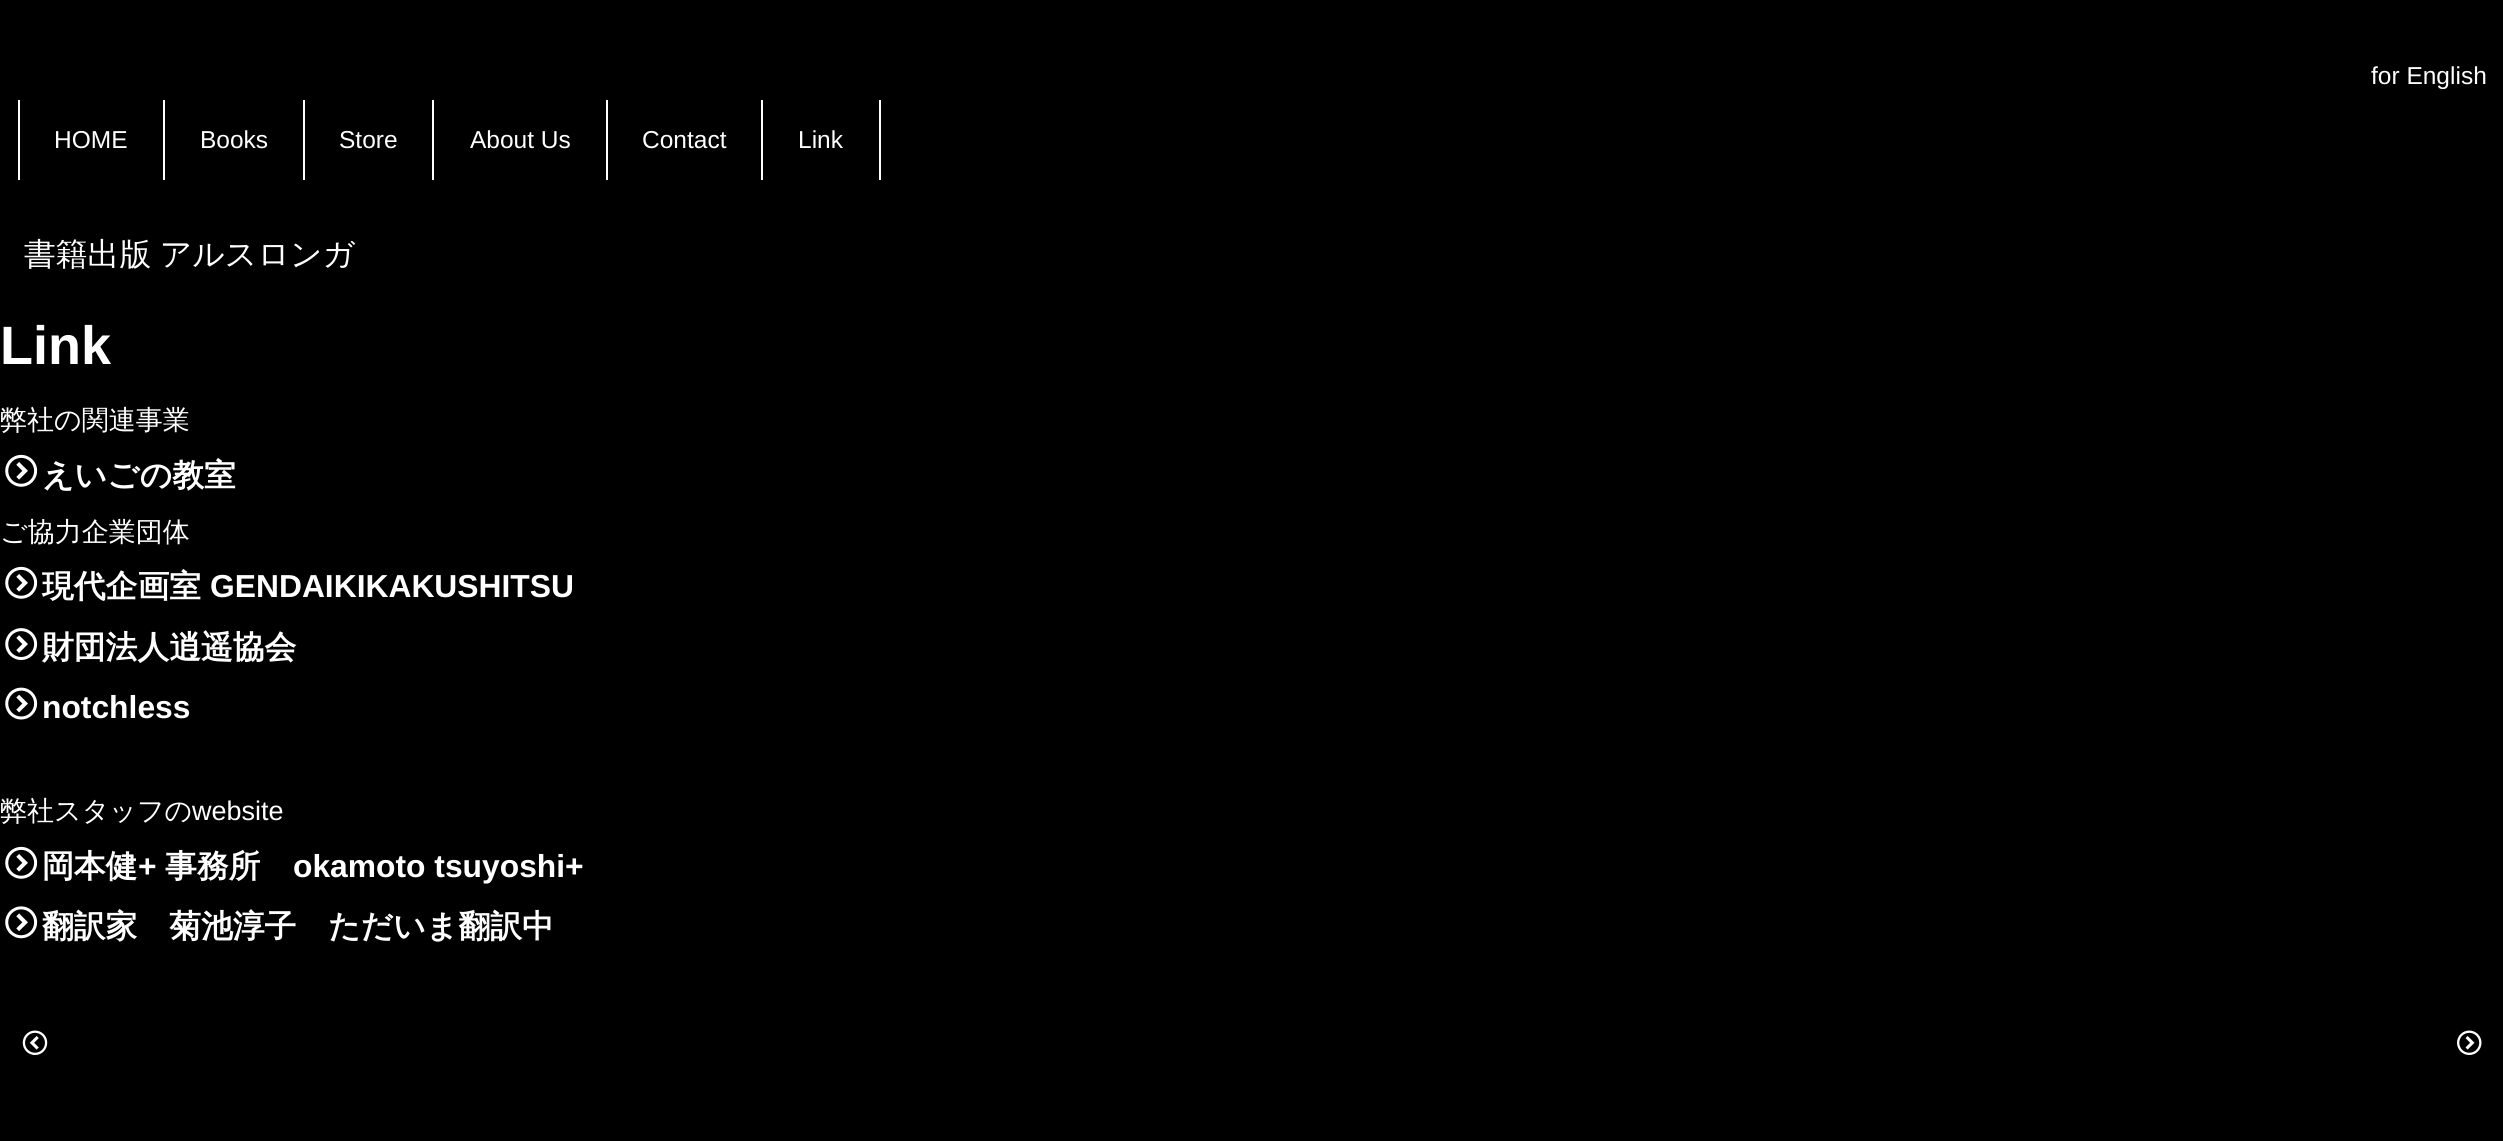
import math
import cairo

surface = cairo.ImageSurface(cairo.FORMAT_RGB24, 2503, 1141)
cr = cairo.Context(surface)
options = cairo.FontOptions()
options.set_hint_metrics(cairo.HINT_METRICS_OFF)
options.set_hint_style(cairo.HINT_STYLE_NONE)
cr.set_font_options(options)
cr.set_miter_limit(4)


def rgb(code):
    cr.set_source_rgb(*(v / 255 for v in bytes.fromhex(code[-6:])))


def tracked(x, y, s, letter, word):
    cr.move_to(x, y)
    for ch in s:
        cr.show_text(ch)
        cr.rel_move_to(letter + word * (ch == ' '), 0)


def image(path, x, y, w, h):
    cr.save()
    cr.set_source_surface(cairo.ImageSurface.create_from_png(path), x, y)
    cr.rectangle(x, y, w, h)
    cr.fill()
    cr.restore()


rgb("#000000")
cr.paint()
for x, y, w, h, color in [
    (163, 100, 2, 80, "#ffffff"),
    (18, 100, 2, 80, "#ffffff"),
    (303, 100, 2, 80, "#ffffff"),
    (432, 100, 2, 80, "#ffffff"),
    (606, 100, 2, 80, "#ffffff"),
    (761, 100, 2, 80, "#ffffff"),
    (879, 100, 2, 80, "#ffffff"),
]:
    rgb(color)
    cr.rectangle(x, y, w, h)
    cr.fill()
image("img/1.png", 5, 454, 33, 33)
image("img/1.png", 5, 566, 33, 33)
image("img/2.png", 5, 628, 33, 32)
image("img/3.png", 5, 687, 33, 33)
image("img/1.png", 5, 846, 33, 33)
image("img/4.png", 5, 906, 33, 33)
image("img/5.png", 22, 1030, 26, 25)
image("img/6.png", 2457, 1030, 25, 25)
cr.select_font_face("Liberation Sans")
cr.set_font_size(24.5)
for x, y, s in [
    (2371, 84, "for English"),
    (54, 148, "HOME"),
    (200, 148, "Books"),
    (339, 148, "Store"),
    (470, 148, "About Us"),
    (642, 148, "Contact"),
    (798, 148, "Link"),
]:
    cr.move_to(x, y)
    cr.show_text(s)
cr.select_font_face("WenQuanYi Zen Hei Medium")
cr.set_font_size(31.8)
tracked(24, 265, "書籍出版 アルスロンガ", 0, -1)
cr.select_font_face("Liberation Sans", cairo.FONT_SLANT_NORMAL, cairo.FONT_WEIGHT_BOLD)
cr.set_font_size(54)
cr.move_to(0, 364)
cr.show_text("Link")
cr.select_font_face("WenQuanYi Zen Hei Medium")
cr.set_font_size(27)
cr.move_to(0, 429)
cr.show_text("弊社の関連事業")
cr.select_font_face("WenQuanYi Zen Hei", cairo.FONT_SLANT_NORMAL, cairo.FONT_WEIGHT_BOLD)
cr.set_font_size(31.8)
cr.move_to(42, 486)
cr.show_text("えいごの教室")
cr.select_font_face("WenQuanYi Zen Hei Medium")
cr.set_font_size(27)
cr.move_to(0, 541)
cr.show_text("ご協力企業団体")
cr.select_font_face("WenQuanYi Zen Hei", cairo.FONT_SLANT_NORMAL, cairo.FONT_WEIGHT_BOLD)
cr.set_font_size(31.8)
cr.move_to(42, 597)
cr.show_text("現代企画室")
cr.select_font_face("Liberation Sans", cairo.FONT_SLANT_NORMAL, cairo.FONT_WEIGHT_BOLD)
cr.move_to(210, 597)
cr.show_text("GENDAIKIKAKUSHITSU")
cr.select_font_face("WenQuanYi Zen Hei", cairo.FONT_SLANT_NORMAL, cairo.FONT_WEIGHT_BOLD)
cr.move_to(42, 658)
cr.show_text("財団法人逍遥協会")
cr.select_font_face("Liberation Sans", cairo.FONT_SLANT_NORMAL, cairo.FONT_WEIGHT_BOLD)
cr.move_to(42, 718)
cr.show_text("notchless")
cr.select_font_face("WenQuanYi Zen Hei Medium")
cr.set_font_size(27)
cr.move_to(0, 820)
cr.show_text("弊社スタッフの")
cr.select_font_face("Liberation Sans")
cr.move_to(192, 820)
cr.show_text("website")
cr.select_font_face("WenQuanYi Zen Hei", cairo.FONT_SLANT_NORMAL, cairo.FONT_WEIGHT_BOLD)
cr.set_font_size(31.8)
cr.move_to(42, 877)
cr.show_text("岡本健")
cr.select_font_face("Liberation Sans", cairo.FONT_SLANT_NORMAL, cairo.FONT_WEIGHT_BOLD)
cr.move_to(138, 877)
cr.show_text("+")
cr.select_font_face("WenQuanYi Zen Hei", cairo.FONT_SLANT_NORMAL, cairo.FONT_WEIGHT_BOLD)
cr.move_to(165, 877)
cr.show_text("事務所")
cr.select_font_face("Liberation Sans", cairo.FONT_SLANT_NORMAL, cairo.FONT_WEIGHT_BOLD)
cr.move_to(293, 877)
cr.show_text("okamoto tsuyoshi+")
cr.select_font_face("WenQuanYi Zen Hei", cairo.FONT_SLANT_NORMAL, cairo.FONT_WEIGHT_BOLD)
cr.move_to(42, 937)
cr.show_text("翻訳家　菊池淳子　ただいま翻訳中")
surface.write_to_png("page.png")
